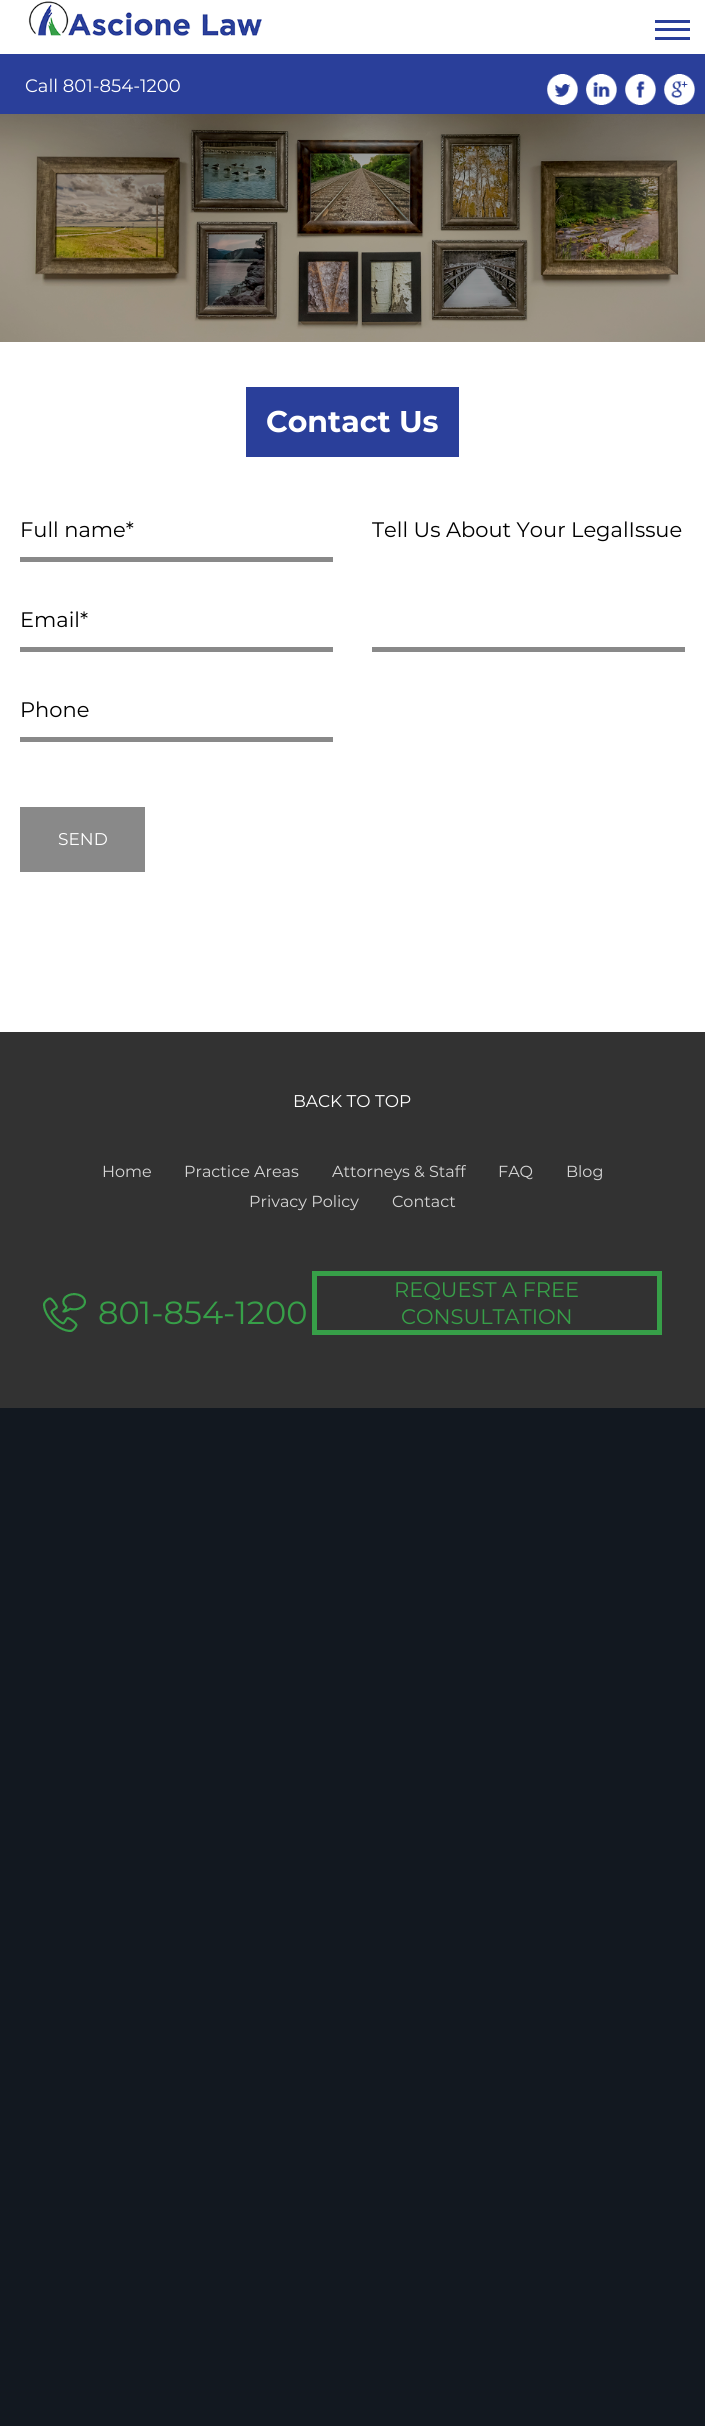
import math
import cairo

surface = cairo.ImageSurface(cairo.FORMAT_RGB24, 705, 2426)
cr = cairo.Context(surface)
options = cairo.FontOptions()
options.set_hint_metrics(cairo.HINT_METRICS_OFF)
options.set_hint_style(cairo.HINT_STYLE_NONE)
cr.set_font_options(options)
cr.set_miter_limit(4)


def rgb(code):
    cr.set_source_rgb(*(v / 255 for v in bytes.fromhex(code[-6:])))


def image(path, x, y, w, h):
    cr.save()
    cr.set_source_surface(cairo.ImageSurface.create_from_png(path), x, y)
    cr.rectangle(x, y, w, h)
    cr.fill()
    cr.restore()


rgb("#121820")
cr.paint()
rgb("#ffffff")
cr.rectangle(0, 0, 705, 1032)
cr.fill()
image("img/1.png", 28, 1, 234, 35)
for x, y, w, h, color in [
    (655, 20, 35, 3, "#2a3f9a"),
    (655, 28, 35, 3, "#2a3f9a"),
    (655, 37, 35, 3, "#2a3f9a"),
    (0, 54, 705, 60, "#2a3f9a"),
]:
    rgb(color)
    cr.rectangle(x, y, w, h)
    cr.fill()
image("img/2.png", 547, 74, 31, 31)
image("img/3.png", 586, 74, 31, 31)
image("img/4.png", 625, 74, 31, 31)
image("img/5.png", 664, 74, 31, 31)
image("img/6.png", 0, 114, 705, 228)
for x, y, w, h, color in [
    (246, 387, 213, 70, "#2a3f9a"),
    (20, 557, 313, 5, "#898989"),
    (20, 647, 313, 5, "#898989"),
    (20, 737, 313, 5, "#898989"),
    (372, 647, 313, 5, "#898989"),
    (20, 807, 125, 65, "#898989"),
    (0, 1032, 705, 376, "#323232"),
]:
    rgb(color)
    cr.rectangle(x, y, w, h)
    cr.fill()
image("img/7.png", 43, 1293, 43, 39)
cr.rectangle(314.5, 1273.5, 345, 59)
rgb("#379f48")
cr.set_line_width(5)
cr.stroke()
cr.select_font_face("Montserrat")
cr.set_font_size(18)
rgb("#ffffff")
cr.move_to(25, 92)
cr.show_text("Call 801-854-1200")
cr.select_font_face("Montserrat", cairo.FONT_SLANT_NORMAL, cairo.FONT_WEIGHT_BOLD)
cr.set_font_size(30)
cr.move_to(266, 432)
cr.show_text("Contact Us")
cr.select_font_face("Montserrat")
cr.set_font_size(21)
rgb("#000000")
for x, y, s in [
    (20, 537, "Full name*"),
    (20, 627, "Email*"),
    (20, 717, "Phone"),
    (372, 537, "Tell Us About Your LegalIssue"),
]:
    cr.move_to(x, y)
    cr.show_text(s)
cr.set_font_size(17)
rgb("#ffffff")
cr.move_to(58, 845)
cr.show_text("SEND")
cr.move_to(293, 1107)
cr.show_text("BACK TO TOP")
cr.set_font_size(16)
rgb("#d6d6d6")
for x, y, s in [
    (102, 1177, "Home"),
    (184, 1177, "Practice Areas"),
    (332, 1177, "Attorneys & Staff"),
    (498, 1177, "FAQ"),
    (566, 1177, "Blog"),
    (249, 1207, "Privacy Policy"),
    (392, 1207, "Contact"),
]:
    cr.move_to(x, y)
    cr.show_text(s)
cr.set_font_size(32)
rgb("#379f48")
cr.move_to(98, 1324)
cr.show_text("801-854-1200")
cr.set_font_size(21)
cr.move_to(394, 1297)
cr.show_text("REQUEST A FREE")
cr.move_to(401, 1324)
cr.show_text("CONSULTATION")
surface.write_to_png("page.png")
